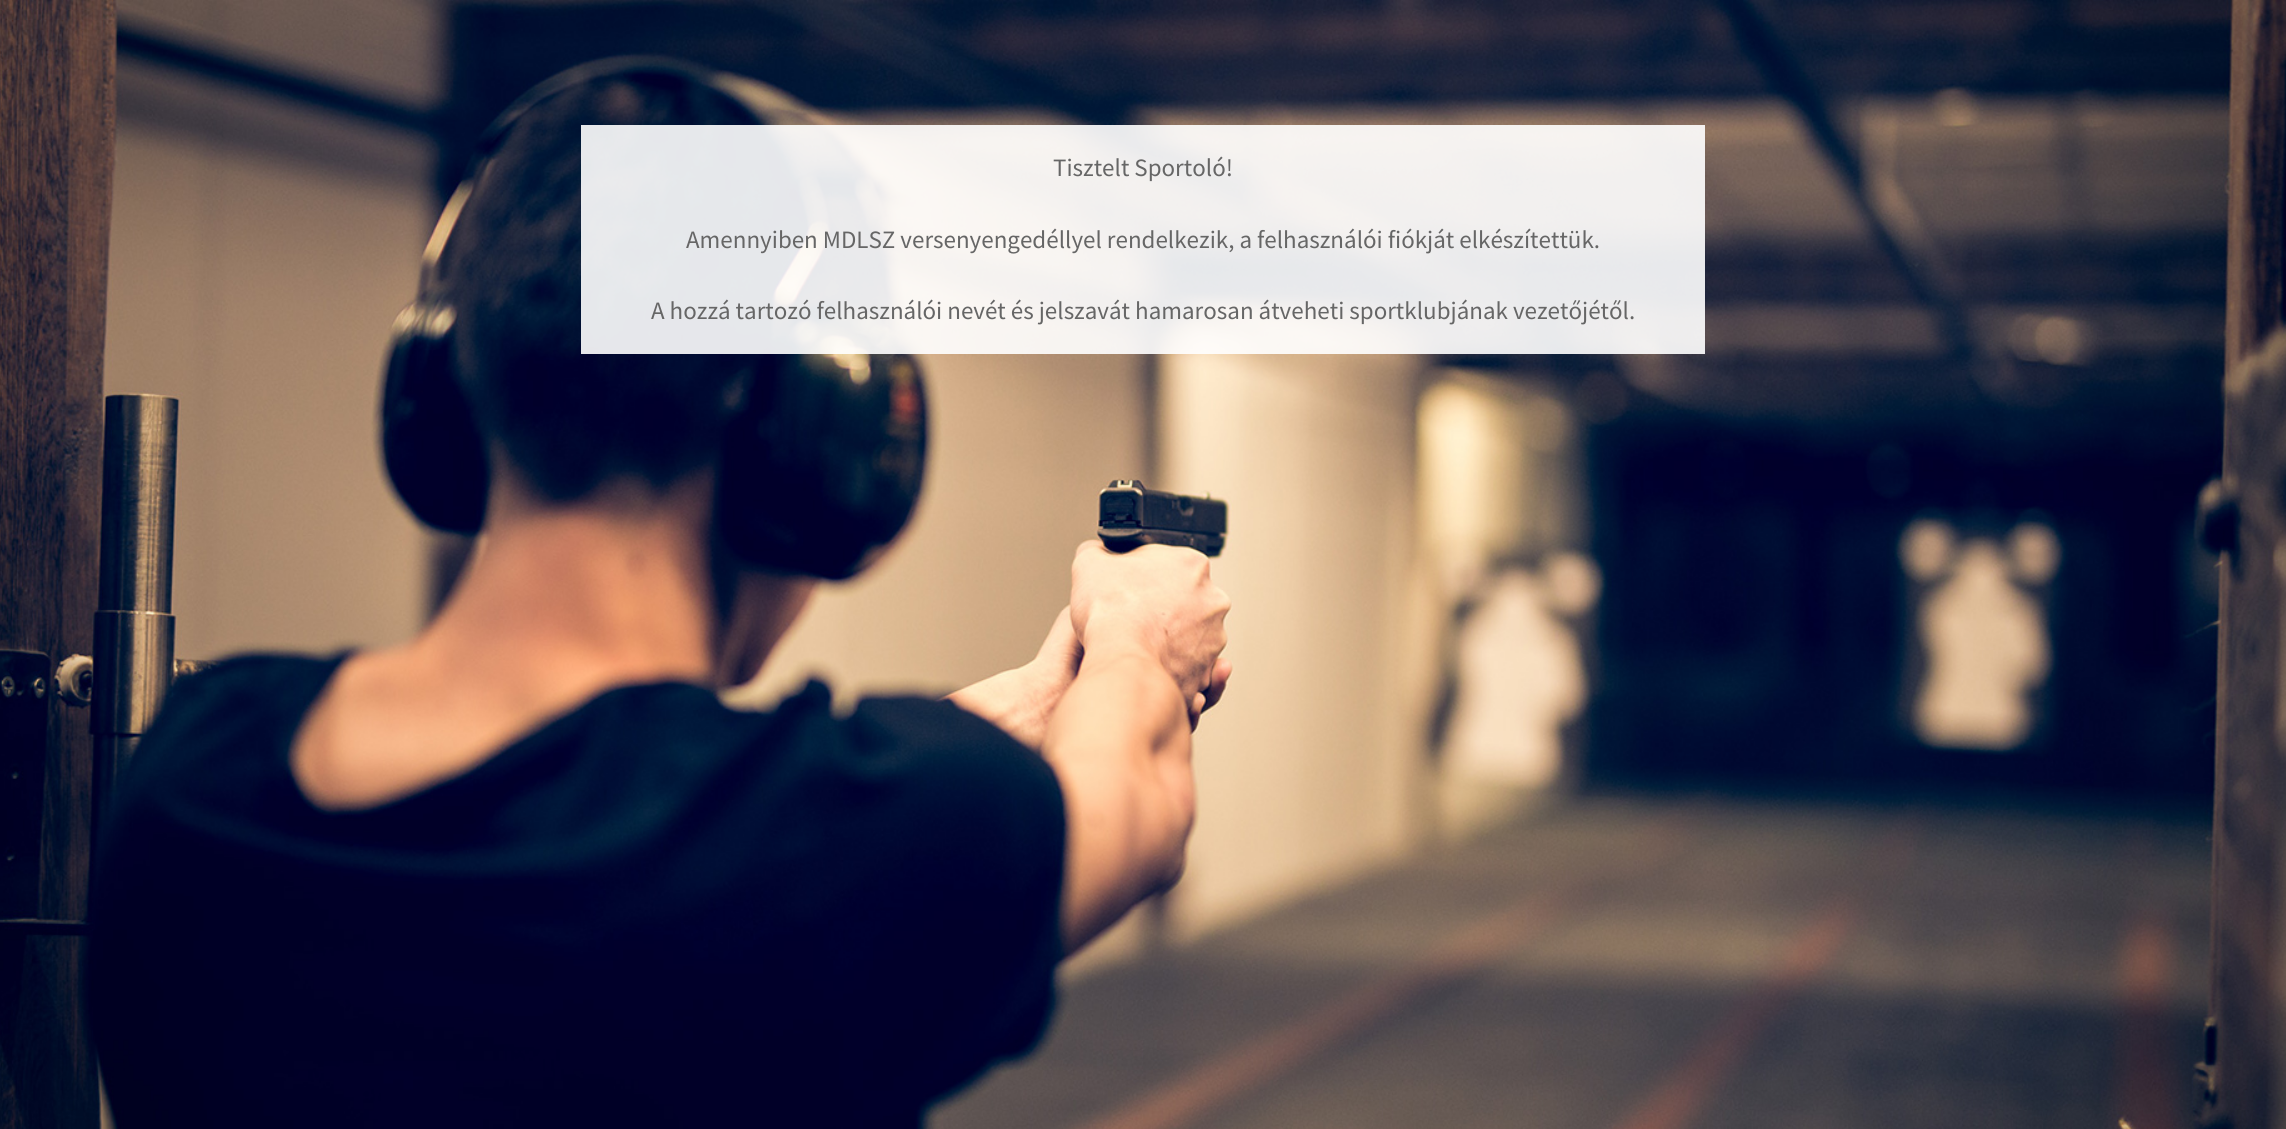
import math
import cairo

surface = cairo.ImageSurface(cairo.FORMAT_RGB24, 2286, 1129)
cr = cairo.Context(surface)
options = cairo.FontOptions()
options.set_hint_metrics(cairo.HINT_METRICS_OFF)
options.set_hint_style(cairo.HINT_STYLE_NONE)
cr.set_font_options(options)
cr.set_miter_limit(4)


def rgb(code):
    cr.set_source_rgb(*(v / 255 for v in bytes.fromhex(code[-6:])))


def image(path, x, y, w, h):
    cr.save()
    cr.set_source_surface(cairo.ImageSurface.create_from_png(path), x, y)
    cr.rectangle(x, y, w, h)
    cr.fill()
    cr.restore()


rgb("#ffffff")
cr.paint()
image("img/1.png", 0, 0, 2286, 1129)
cr.set_source_rgba(1, 1, 1, 0.9)
cr.rectangle(581, 125, 1124, 229)
cr.fill()
cr.select_font_face("Source Sans Pro")
cr.set_font_size(25)
rgb("#666666")
for x, y, s in [
    (1053, 176, "Tisztelt Sportoló!"),
    (686, 248, "Amennyiben MDLSZ versenyengedéllyel rendelkezik, a felhasználói fiókját elkészítettük."),
    (651, 319, "A hozzá tartozó felhasználói nevét és jelszavát hamarosan átveheti sportklubjának vezetőjétől."),
]:
    cr.move_to(x, y)
    cr.show_text(s)
surface.write_to_png("page.png")
